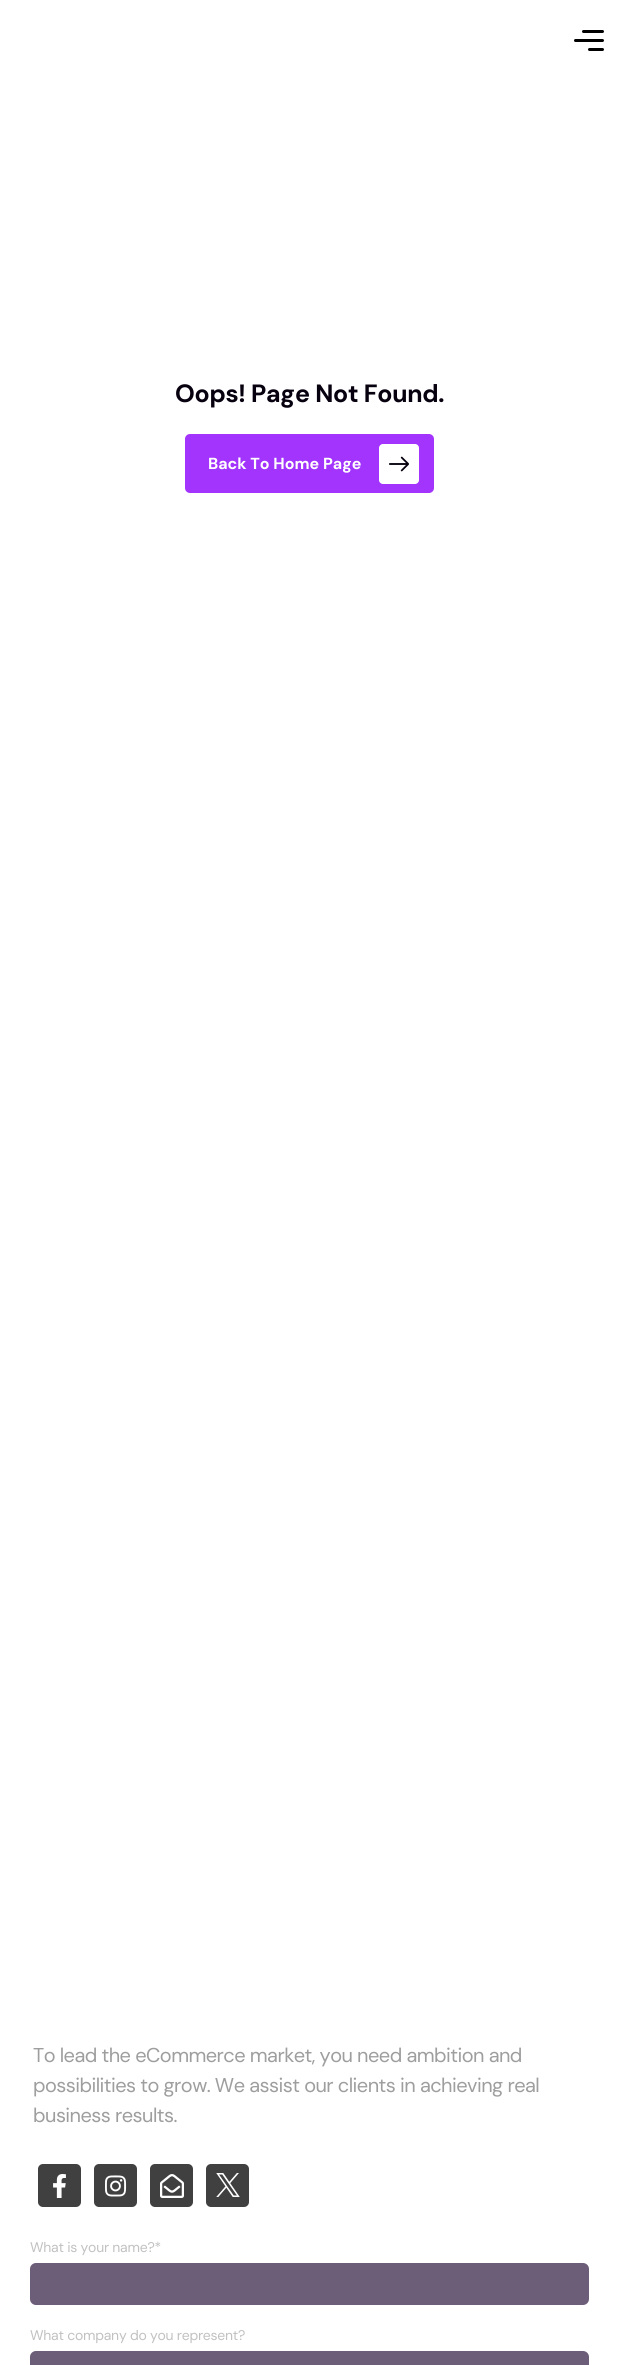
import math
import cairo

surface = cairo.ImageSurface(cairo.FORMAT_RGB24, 619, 2365)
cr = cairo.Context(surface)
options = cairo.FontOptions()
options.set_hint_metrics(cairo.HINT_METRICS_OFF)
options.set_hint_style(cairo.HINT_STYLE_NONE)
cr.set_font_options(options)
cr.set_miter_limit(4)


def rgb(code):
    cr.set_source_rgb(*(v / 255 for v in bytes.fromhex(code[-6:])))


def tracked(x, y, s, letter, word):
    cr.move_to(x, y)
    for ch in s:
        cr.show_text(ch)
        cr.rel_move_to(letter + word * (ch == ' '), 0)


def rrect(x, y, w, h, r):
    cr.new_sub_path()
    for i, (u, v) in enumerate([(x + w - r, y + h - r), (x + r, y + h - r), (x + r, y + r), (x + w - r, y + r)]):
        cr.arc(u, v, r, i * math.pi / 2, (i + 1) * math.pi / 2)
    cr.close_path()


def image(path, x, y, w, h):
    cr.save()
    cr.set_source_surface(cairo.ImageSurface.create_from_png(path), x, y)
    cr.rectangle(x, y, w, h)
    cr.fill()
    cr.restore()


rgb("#ffffff")
cr.paint()
rgb("#000000")
rrect(582, 30, 22, 3, 1.5)
cr.fill()
rrect(574, 39, 30, 3, 1.5)
cr.fill()
rrect(588, 48, 16, 3, 1.5)
cr.fill()
rgb("#a234fd")
rrect(183.5, 432.5, 252, 62, 6.5)
cr.fill_preserve()
rgb("#ffffff")
cr.set_line_width(3)
cr.stroke()
rrect(379, 444, 40, 40, 4)
cr.fill()
image("img/1.png", 389, 456, 20, 16)
rgb("#404040")
rrect(38, 2164, 43, 43, 5)
cr.fill()
image("img/2.png", 53, 2174, 13, 24)
rrect(94, 2164, 43, 43, 5)
cr.fill()
image("img/3.png", 105, 2175, 22, 22)
rrect(150, 2164, 43, 43, 5)
cr.fill()
image("img/4.png", 160, 2174, 24, 24)
rrect(206, 2164, 43, 43, 5)
cr.fill()
image("img/5.png", 216, 2173, 24, 24)
rgb("#6c5d78")
rrect(30, 2263, 559, 42, 6)
cr.fill()
rrect(30, 2351, 559, 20, 6)
cr.fill()
cr.select_font_face("DM Sans", cairo.FONT_SLANT_NORMAL, cairo.FONT_WEIGHT_BOLD)
cr.set_font_size(25)
rgb("#07000e")
tracked(175, 402, "Oops! Page Not Found.", -0.25, 0)
cr.select_font_face("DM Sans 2", cairo.FONT_SLANT_NORMAL, cairo.FONT_WEIGHT_BOLD)
cr.set_font_size(16)
rgb("#ffffff")
cr.move_to(208, 469)
cr.show_text("Back To Home Page")
cr.select_font_face("DM Sans")
cr.set_font_size(20)
rgb("#9f9e9e")
for x, y, s in [
    (33, 2062, "To lead the eCommerce market, you need ambition and"),
    (33, 2092, "possibilities to grow. We assist our clients in achieving real"),
    (33, 2122, "business results."),
]:
    tracked(x, y, s, -0.55, 0)
cr.select_font_face("DM Sans 2")
cr.set_font_size(14)
rgb("#c1c1c1")
tracked(30, 2252, "What is your name?*", -0.25, 0)
tracked(30, 2340, "What company do you represent?", -0.25, 0)
surface.write_to_png("page.png")
